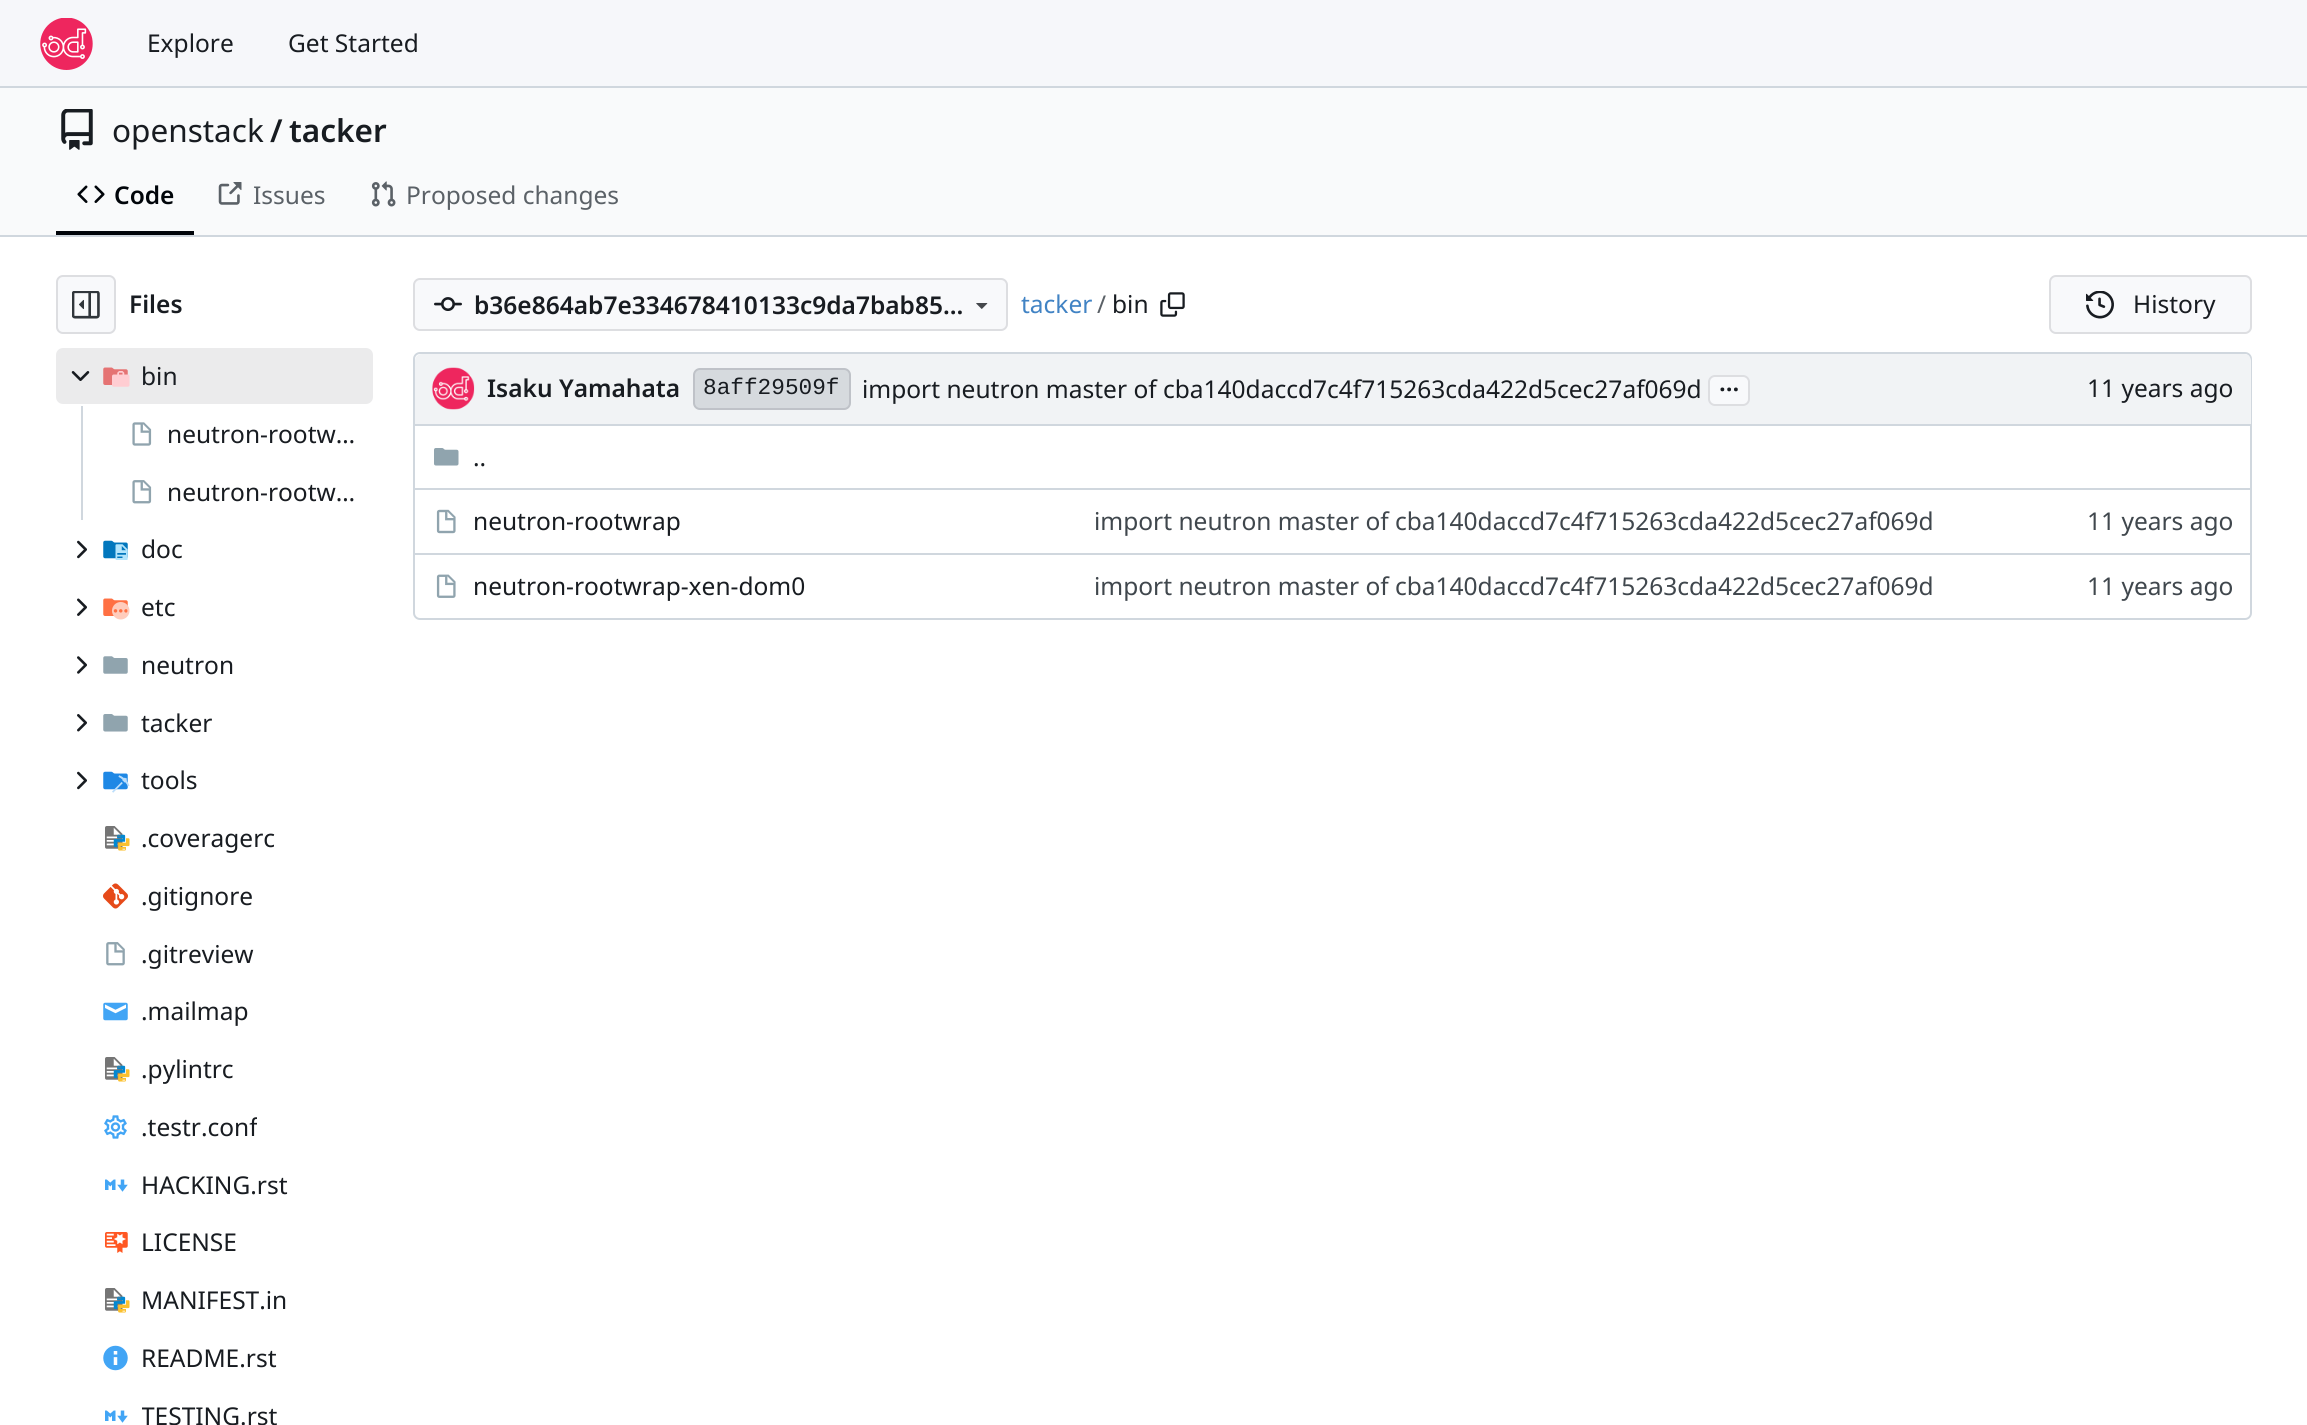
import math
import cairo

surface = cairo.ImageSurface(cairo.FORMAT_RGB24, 2307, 1425)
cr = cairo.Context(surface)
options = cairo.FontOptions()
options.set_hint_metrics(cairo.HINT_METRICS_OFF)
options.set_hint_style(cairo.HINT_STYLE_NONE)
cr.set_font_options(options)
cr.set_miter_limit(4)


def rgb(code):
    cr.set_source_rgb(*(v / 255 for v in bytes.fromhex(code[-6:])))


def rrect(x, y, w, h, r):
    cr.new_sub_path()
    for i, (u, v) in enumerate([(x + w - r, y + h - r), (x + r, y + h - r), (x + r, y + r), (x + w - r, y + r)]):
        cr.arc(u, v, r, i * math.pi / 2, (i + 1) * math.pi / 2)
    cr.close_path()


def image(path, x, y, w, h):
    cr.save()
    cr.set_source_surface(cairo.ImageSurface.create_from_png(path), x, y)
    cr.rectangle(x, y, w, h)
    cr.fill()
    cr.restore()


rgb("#ffffff")
cr.paint()
rgb("#f6f7fa")
cr.rectangle(0, 0, 2307, 86)
cr.fill()
rgb("#d0d7de")
cr.rectangle(0, 86, 2307, 2)
cr.fill()
image("img/1.png", 40, 18, 53, 52)
rgb("#f9fafb")
cr.rectangle(0, 88, 2307, 147)
cr.fill()
image("img/2.png", 61, 109, 32, 41)
rgb("#01050a")
cr.rectangle(56, 231, 138, 4)
cr.fill()
image("img/3.png", 77, 185, 28, 18)
image("img/4.png", 218, 182, 24, 23)
image("img/5.png", 371, 181, 25, 26)
rgb("#d0d7de")
cr.rectangle(0, 235, 2307, 2)
cr.fill()
rgb("#f8f9fb")
rrect(56, 275, 60, 59, 7)
cr.fill()
rrect(57, 276, 58, 57, 6)
cr.set_source_rgba(0, 0, 0.09, 0.11)
cr.stroke()
image("img/6.png", 72, 291, 28, 28)
rgb("#ebebec")
rrect(56, 348, 317, 56, 7)
cr.fill()
image("img/7.png", 71, 371, 19, 10)
image("img/8.png", 103, 367, 27, 20)
rgb("#d0d7de")
cr.rectangle(81, 406, 2, 114)
cr.fill()
image("img/9.png", 132, 422, 20, 24)
image("img/10.png", 132, 480, 20, 24)
image("img/11.png", 77, 540, 10, 19)
image("img/12.png", 103, 540, 25, 20)
image("img/13.png", 77, 598, 10, 18)
image("img/14.png", 103, 598, 27, 22)
image("img/15.png", 77, 656, 10, 18)
image("img/16.png", 103, 656, 25, 18)
image("img/17.png", 77, 714, 10, 18)
image("img/18.png", 103, 714, 25, 18)
image("img/11.png", 77, 771, 10, 19)
image("img/19.png", 103, 771, 27, 22)
image("img/20.png", 105, 826, 25, 25)
image("img/21.png", 103, 883, 25, 26)
image("img/22.png", 106, 942, 19, 24)
image("img/23.png", 103, 1002, 25, 19)
image("img/20.png", 105, 1057, 25, 25)
image("img/24.png", 104, 1115, 23, 24)
image("img/25.png", 105, 1179, 23, 13)
image("img/26.png", 105, 1232, 23, 21)
image("img/20.png", 105, 1288, 25, 25)
image("img/27.png", 103, 1345, 25, 26)
image("img/25.png", 105, 1410, 23, 13)
rgb("#f8f9fb")
rrect(413, 278, 595, 53, 7)
cr.fill()
rrect(414, 279, 593, 51, 6)
cr.set_source_rgba(0, 0, 0.09, 0.11)
cr.stroke()
image("img/28.png", 434, 297, 28, 14)
image("img/29.png", 976, 303, 12, 6)
image("img/30.png", 1160, 292, 25, 25)
rgb("#f8f9fb")
rrect(2049, 275, 203, 59, 7)
cr.fill()
rrect(2050, 276, 201, 57, 6)
cr.set_source_rgba(0, 0, 0.09, 0.11)
cr.stroke()
image("img/31.png", 2086, 291, 28, 28)
rrect(414, 353, 1837, 266, 6)
rgb("#d0d7de")
cr.stroke()
rgb("#f1f3f5")
cr.new_path()
cr.move_to(422, 354)
cr.line_to(2244, 354)
cr.curve_to(2248, 354, 2251, 357, 2251, 361)
cr.line_to(2251, 424)
cr.line_to(415, 424)
cr.line_to(415, 361)
cr.curve_to(415, 357, 418, 354, 422, 354)
cr.close_path()
cr.fill()
image("img/32.png", 432, 367, 43, 43)
rgb("#d6dade")
rrect(693, 368, 158, 42, 7)
cr.fill()
rrect(694, 369, 156, 40, 6)
cr.set_source_rgba(0, 0, 0.09, 0.11)
cr.stroke()
rgb("#f8f9fb")
rrect(1708, 375, 42, 31, 7)
cr.fill()
rrect(1709, 376, 40, 29, 6)
cr.set_source_rgba(0, 0, 0.09, 0.11)
cr.stroke()
rgb("#d0d7de")
cr.rectangle(415, 424, 1836, 2)
cr.fill()
image("img/33.png", 434, 448, 25, 18)
cr.rectangle(415, 488, 1654, 2)
cr.fill()
image("img/34.png", 436, 509, 20, 25)
cr.rectangle(2069, 488, 182, 2)
cr.fill()
cr.rectangle(415, 553, 1654, 2)
cr.fill()
image("img/35.png", 436, 574, 20, 24)
cr.rectangle(2069, 553, 182, 2)
cr.fill()
cr.select_font_face("Noto Sans")
cr.set_font_size(24.5)
rgb("#181c21")
cr.move_to(147, 52)
cr.show_text("Explore")
cr.move_to(288, 52)
cr.show_text("Get Started")
cr.set_font_size(31.5)
cr.move_to(112, 142)
cr.show_text("openstack")
cr.select_font_face("Noto Sans SemiBold")
cr.move_to(270, 142)
cr.show_text("/")
cr.move_to(289, 142)
cr.show_text("tacker")
cr.set_font_size(24.5)
rgb("#01050a")
cr.move_to(114, 204)
cr.show_text("Code")
cr.select_font_face("Noto Sans")
rgb("#5b6167")
cr.move_to(253, 204)
cr.show_text("Issues")
cr.move_to(406, 204)
cr.show_text("Proposed changes")
cr.select_font_face("Noto Sans SemiBold")
rgb("#181c21")
cr.move_to(129, 313)
cr.show_text("Files")
cr.select_font_face("Noto Sans")
for x, y, s in [
    (141, 385, "bin"),
    (167, 443, "neutron-rootw…"),
    (167, 501, "neutron-rootw…"),
    (141, 558, "doc"),
    (141, 616, "etc"),
    (141, 674, "neutron"),
    (141, 732, "tacker"),
    (141, 789, "tools"),
    (141, 847, ".coveragerc"),
    (141, 905, ".gitignore"),
    (141, 963, ".gitreview"),
    (141, 1020, ".mailmap"),
    (141, 1078, ".pylintrc"),
]:
    cr.move_to(x, y)
    cr.show_text(s)
cr.save()
cr.rectangle(142, 1110, 115, 35)
cr.clip()
cr.move_to(141, 1136)
cr.show_text(".testr.conf")
cr.restore()
for x, y, s in [
    (141, 1194, "HACKING.rst"),
    (141, 1251, "LICENSE"),
    (141, 1309, "MANIFEST.in"),
    (141, 1367, "README.rst"),
]:
    cr.move_to(x, y)
    cr.show_text(s)
cr.save()
cr.rectangle(142, 1398, 135, 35)
cr.clip()
cr.move_to(141, 1425)
cr.show_text("TESTING.rst")
cr.restore()
cr.select_font_face("Noto Sans SemiBold")
cr.move_to(474, 314)
cr.show_text("b36e864ab7e334678410133c9da7bab85…")
cr.select_font_face("Noto Sans")
rgb("#4183c4")
cr.move_to(1021, 313)
cr.show_text("tacker")
rgb("#5b6167")
cr.move_to(1097, 313)
cr.show_text("/")
rgb("#181c21")
cr.move_to(1112, 313)
cr.show_text("bin")
cr.move_to(2133, 313)
cr.show_text("History")
cr.select_font_face("Noto Sans SemiBold")
cr.move_to(487, 397)
cr.show_text("Isaku Yamahata")
cr.select_font_face("Liberation Mono")
cr.set_font_size(22.75)
cr.move_to(703, 394)
cr.show_text("8aff29509f")
cr.select_font_face("Noto Sans")
cr.set_font_size(24.5)
cr.move_to(862, 398)
cr.show_text("import neutron master of cba140daccd7c4f715263cda422d5cec27af069d")
cr.select_font_face("Noto Sans SemiBold")
cr.move_to(1719, 391)
cr.show_text("...")
cr.select_font_face("Noto Sans")
for x, y, s in [
    (2087, 397, "11 years ago"),
    (473, 466, ".."),
    (473, 530, "neutron-rootwrap"),
]:
    cr.move_to(x, y)
    cr.show_text(s)
rgb("#40474d")
cr.move_to(1094, 530)
cr.show_text("import neutron master of cba140daccd7c4f715263cda422d5cec27af069d")
cr.move_to(2087, 530)
cr.show_text("11 years ago")
rgb("#181c21")
cr.move_to(473, 595)
cr.show_text("neutron-rootwrap-xen-dom0")
rgb("#40474d")
cr.move_to(1094, 595)
cr.show_text("import neutron master of cba140daccd7c4f715263cda422d5cec27af069d")
cr.move_to(2087, 595)
cr.show_text("11 years ago")
surface.write_to_png("page.png")
